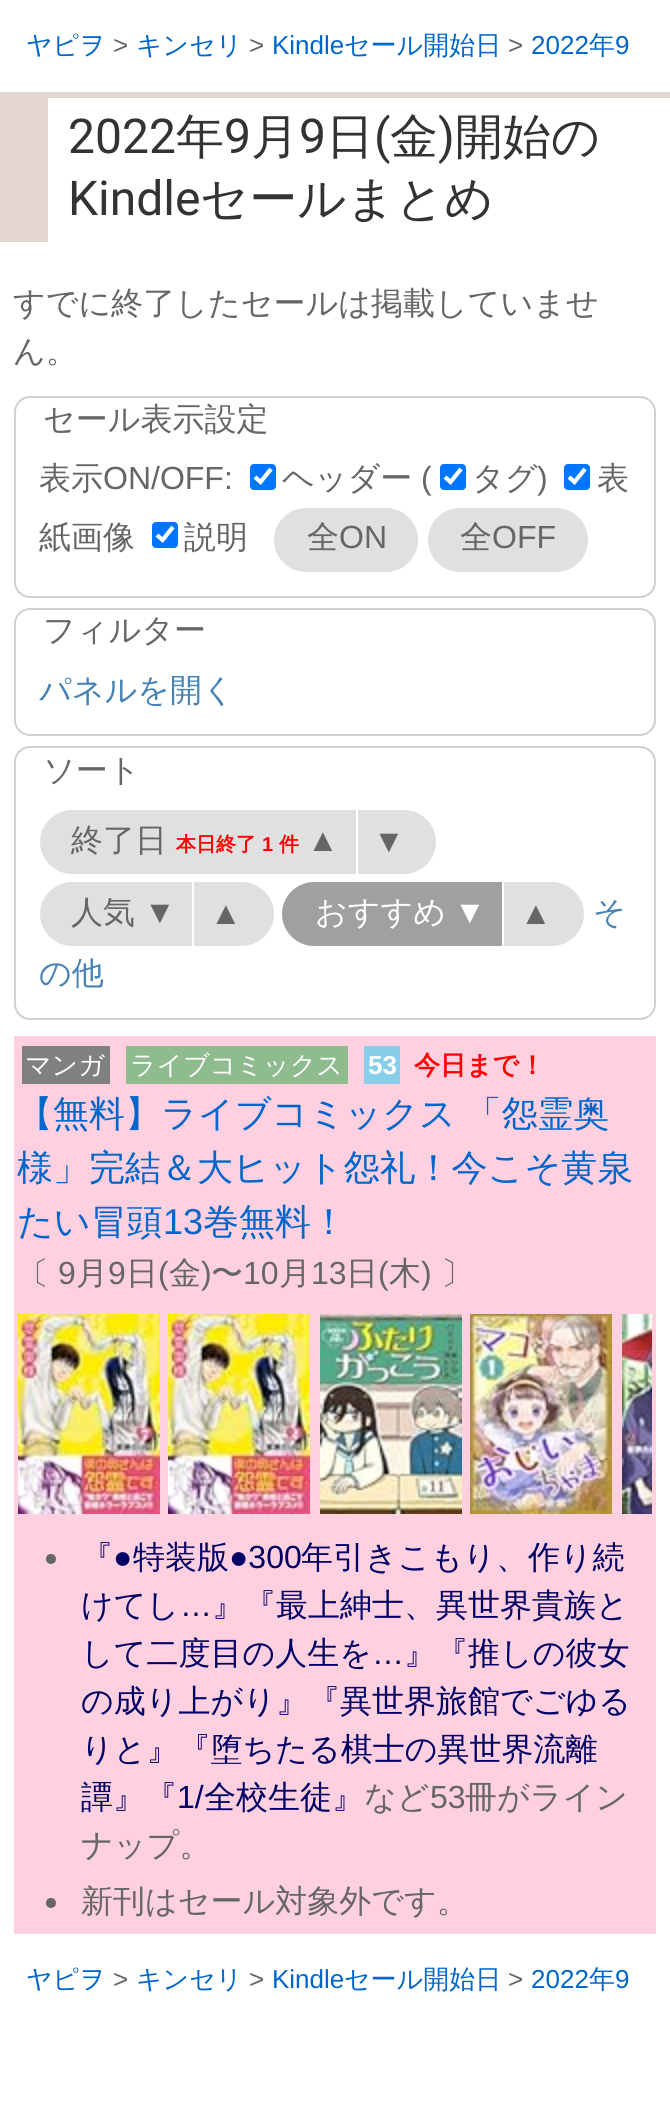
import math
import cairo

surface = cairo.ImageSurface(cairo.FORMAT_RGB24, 670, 2127)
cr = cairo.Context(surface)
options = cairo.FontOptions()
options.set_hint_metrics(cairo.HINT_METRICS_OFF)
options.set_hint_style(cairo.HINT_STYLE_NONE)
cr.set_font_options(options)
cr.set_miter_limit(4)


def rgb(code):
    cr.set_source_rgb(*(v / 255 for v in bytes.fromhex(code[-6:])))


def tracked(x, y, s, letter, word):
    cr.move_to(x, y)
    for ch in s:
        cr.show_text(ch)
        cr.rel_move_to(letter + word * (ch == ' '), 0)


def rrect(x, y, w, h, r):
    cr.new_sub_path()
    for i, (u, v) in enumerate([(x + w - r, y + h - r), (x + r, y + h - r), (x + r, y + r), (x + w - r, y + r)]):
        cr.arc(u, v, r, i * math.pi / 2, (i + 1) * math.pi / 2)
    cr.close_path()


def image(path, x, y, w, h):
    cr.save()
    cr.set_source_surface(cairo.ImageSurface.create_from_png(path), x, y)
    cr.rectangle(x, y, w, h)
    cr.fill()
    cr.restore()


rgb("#ffffff")
cr.paint()
rgb("#e2d6cf")
cr.rectangle(48, 92, 622, 6)
cr.fill()
cr.rectangle(0, 92, 48, 150)
cr.fill()
rrect(15, 397, 640, 200, 15)
rgb("#d0d0d0")
cr.stroke()
rgb("#0075ff")
rrect(250, 464, 26, 26, 4)
cr.fill()
cr.new_path()
cr.move_to(255, 477)
cr.line_to(260.5, 482)
cr.line_to(271, 469)
rgb("#ffffff")
cr.set_line_width(4.2)
cr.stroke()
rgb("#0075ff")
rrect(440, 464, 26, 26, 4)
cr.fill()
cr.new_path()
cr.move_to(445, 477)
cr.line_to(450.5, 482)
cr.line_to(461, 469)
rgb("#ffffff")
cr.stroke()
rgb("#0075ff")
rrect(564, 464, 26, 26, 4)
cr.fill()
cr.new_path()
cr.move_to(569, 477)
cr.line_to(574.5, 482)
cr.line_to(585, 469)
rgb("#ffffff")
cr.stroke()
rgb("#0075ff")
rrect(152, 522, 26, 26, 4)
cr.fill()
cr.new_path()
cr.move_to(157, 535)
cr.line_to(162.5, 540)
cr.line_to(173, 527)
rgb("#ffffff")
cr.stroke()
rgb("#e0e0e0")
rrect(274, 508, 144, 64, 32)
cr.fill()
rrect(428, 508, 160, 64, 32)
cr.fill()
rrect(15, 609, 640, 126, 15)
rgb("#d0d0d0")
cr.set_line_width(2)
cr.stroke()
rrect(15, 747, 640, 272, 15)
cr.stroke()
rgb("#e0e0e0")
cr.new_path()
cr.move_to(72, 810)
cr.line_to(356, 810)
cr.line_to(356, 874)
cr.line_to(72, 874)
cr.curve_to(54.5, 874, 40, 859.5, 40, 842)
cr.curve_to(40, 824.5, 54.5, 810, 72, 810)
cr.close_path()
cr.fill()
cr.new_path()
cr.move_to(358, 810)
cr.line_to(404, 810)
cr.curve_to(421.5, 810, 436, 824.5, 436, 842)
cr.curve_to(436, 859.5, 421.5, 874, 404, 874)
cr.line_to(358, 874)
cr.close_path()
cr.fill()
cr.new_path()
cr.move_to(72, 882)
cr.line_to(192, 882)
cr.line_to(192, 946)
cr.line_to(72, 946)
cr.curve_to(54.5, 946, 40, 931.5, 40, 914)
cr.curve_to(40, 896.5, 54.5, 882, 72, 882)
cr.close_path()
cr.fill()
cr.new_path()
cr.move_to(194, 882)
cr.line_to(242, 882)
cr.curve_to(259.5, 882, 274, 896.5, 274, 914)
cr.curve_to(274, 931.5, 259.5, 946, 242, 946)
cr.line_to(194, 946)
cr.close_path()
cr.fill()
rgb("#a0a0a0")
cr.new_path()
cr.move_to(314, 882)
cr.line_to(502, 882)
cr.line_to(502, 946)
cr.line_to(314, 946)
cr.curve_to(296.5, 946, 282, 931.5, 282, 914)
cr.curve_to(282, 896.5, 296.5, 882, 314, 882)
cr.close_path()
cr.fill()
rgb("#e0e0e0")
cr.new_path()
cr.move_to(504, 882)
cr.line_to(552, 882)
cr.curve_to(569.5, 882, 584, 896.5, 584, 914)
cr.curve_to(584, 931.5, 569.5, 946, 552, 946)
cr.line_to(504, 946)
cr.close_path()
cr.fill()
for x, y, w, h, color in [
    (14, 1036, 642, 898, "#ffd0e0"),
    (22, 1046, 88, 38, "#808080"),
    (126, 1046, 222, 38, "#8fbc8f"),
    (364, 1046, 36, 38, "#87ceeb"),
]:
    rgb(color)
    cr.rectangle(x, y, w, h)
    cr.fill()
image("img/1.png", 18, 1314, 142, 200)
image("img/2.png", 168, 1314, 142, 200)
image("img/3.png", 320, 1314, 142, 200)
image("img/4.png", 470, 1314, 142, 200)
image("img/5.png", 622, 1314, 30, 200)
rgb("#666666")
cr.arc(51, 1559, 5, 0, 2 * math.pi)
cr.fill()
cr.arc(51, 1903, 5, 0, 2 * math.pi)
cr.fill()
cr.select_font_face("WenQuanYi Zen Hei Medium")
cr.set_font_size(26)
rgb("#0066cb")
cr.move_to(26, 54)
cr.show_text("ヤピヲ")
cr.select_font_face("Liberation Sans")
rgb("#666666")
cr.move_to(113, 54)
cr.show_text(">")
cr.select_font_face("WenQuanYi Zen Hei Medium")
rgb("#0066cb")
cr.move_to(136, 54)
cr.show_text("キンセリ")
cr.select_font_face("Liberation Sans")
rgb("#666666")
cr.move_to(249, 54)
cr.show_text(">")
rgb("#0066cb")
cr.move_to(272, 54)
cr.show_text("Kindle")
cr.select_font_face("WenQuanYi Zen Hei Medium")
cr.move_to(344, 54)
cr.show_text("セール開始日")
cr.select_font_face("Liberation Sans")
rgb("#666666")
cr.move_to(508, 54)
cr.show_text(">")
rgb("#0066cb")
cr.move_to(531, 54)
cr.show_text("2022")
cr.select_font_face("WenQuanYi Zen Hei Medium")
cr.move_to(589, 54)
cr.show_text("年")
cr.select_font_face("Liberation Sans")
cr.move_to(615, 54)
cr.show_text("9")
cr.select_font_face("Roboto")
cr.set_font_size(48)
rgb("#333333")
cr.move_to(68, 153)
cr.show_text("2022")
cr.select_font_face("WenQuanYi Zen Hei Medium")
cr.move_to(176, 153)
cr.show_text("年")
cr.select_font_face("Roboto")
cr.move_to(224, 153)
cr.show_text("9")
cr.select_font_face("WenQuanYi Zen Hei Medium")
cr.move_to(251, 153)
cr.show_text("月")
cr.select_font_face("Roboto")
cr.move_to(299, 153)
cr.show_text("9")
cr.select_font_face("WenQuanYi Zen Hei Medium")
cr.move_to(326, 153)
cr.show_text("日")
cr.select_font_face("Roboto")
cr.move_to(374, 153)
cr.show_text("(")
cr.select_font_face("WenQuanYi Zen Hei Medium")
cr.move_to(390, 153)
cr.show_text("金")
cr.select_font_face("Roboto")
cr.move_to(438, 153)
cr.show_text(")")
cr.select_font_face("WenQuanYi Zen Hei Medium")
cr.move_to(455, 153)
cr.show_text("開始の")
cr.select_font_face("Roboto")
cr.move_to(68, 215)
cr.show_text("Kindle")
cr.select_font_face("WenQuanYi Zen Hei Medium")
cr.move_to(200, 215)
cr.show_text("セールまとめ")
cr.set_font_size(32)
rgb("#666666")
for x, y, s in [
    (13, 314, "すでに終了したセールは掲載していませ"),
    (13, 362, "ん。"),
    (43, 430, "セール表示設定"),
    (39, 489, "表示"),
]:
    cr.move_to(x, y)
    cr.show_text(s)
cr.select_font_face("Liberation Sans")
cr.move_to(103, 489)
cr.show_text("ON/OFF:")
cr.select_font_face("WenQuanYi Zen Hei Medium")
cr.move_to(282, 489)
cr.show_text("ヘッダー")
cr.select_font_face("Liberation Sans")
cr.move_to(421, 489)
cr.show_text("(")
cr.select_font_face("WenQuanYi Zen Hei Medium")
cr.move_to(472, 489)
cr.show_text("タグ")
cr.select_font_face("Liberation Sans")
cr.move_to(537, 489)
cr.show_text(")")
cr.select_font_face("WenQuanYi Zen Hei Medium")
for x, y, s in [
    (597, 489, "表"),
    (39, 548, "紙画像"),
    (184, 548, "説明"),
    (307, 548, "全"),
]:
    cr.move_to(x, y)
    cr.show_text(s)
cr.select_font_face("Liberation Sans")
cr.move_to(339, 548)
cr.show_text("ON")
cr.select_font_face("WenQuanYi Zen Hei Medium")
cr.move_to(460, 548)
cr.show_text("全")
cr.select_font_face("Liberation Sans")
cr.move_to(492, 548)
cr.show_text("OFF")
cr.select_font_face("WenQuanYi Zen Hei Medium")
cr.move_to(43, 641)
cr.show_text("フィルター")
rgb("#4682b4")
cr.move_to(39, 701)
cr.show_text("パネルを開く")
rgb("#666666")
cr.move_to(43, 781)
cr.show_text("ソート")
cr.move_to(71, 851)
cr.show_text("終了日")
cr.select_font_face("WenQuanYi Zen Hei", cairo.FONT_SLANT_NORMAL, cairo.FONT_WEIGHT_BOLD)
cr.set_font_size(20)
rgb("#ff0000")
cr.move_to(176, 851)
cr.show_text("本日終了")
cr.select_font_face("Liberation Sans", cairo.FONT_SLANT_NORMAL, cairo.FONT_WEIGHT_BOLD)
cr.move_to(262, 851)
cr.show_text("1")
cr.select_font_face("WenQuanYi Zen Hei", cairo.FONT_SLANT_NORMAL, cairo.FONT_WEIGHT_BOLD)
cr.move_to(279, 851)
cr.show_text("件")
cr.select_font_face("Liberation Sans")
cr.set_font_size(32)
rgb("#666666")
cr.move_to(307, 851)
cr.show_text("▲")
cr.move_to(373, 852)
cr.show_text("▼")
cr.select_font_face("WenQuanYi Zen Hei Medium")
cr.move_to(71, 923)
cr.show_text("人気")
cr.select_font_face("Liberation Sans")
cr.move_to(144, 923)
cr.show_text("▼")
cr.move_to(210, 924)
cr.show_text("▲")
cr.select_font_face("WenQuanYi Zen Hei Medium")
rgb("#ffffff")
cr.move_to(315, 923)
cr.show_text("おすすめ")
cr.select_font_face("Liberation Sans")
cr.move_to(454, 923)
cr.show_text("▼")
rgb("#666666")
cr.move_to(520, 924)
cr.show_text("▲")
cr.select_font_face("WenQuanYi Zen Hei Medium")
rgb("#4682b4")
cr.move_to(593, 923)
cr.show_text("そ")
cr.move_to(39, 984)
cr.show_text("の他")
cr.set_font_size(26)
rgb("#ffffff")
cr.move_to(25, 1074)
cr.show_text("マンガ")
cr.move_to(130, 1074)
cr.show_text("ライブコミックス")
cr.select_font_face("Liberation Sans", cairo.FONT_SLANT_NORMAL, cairo.FONT_WEIGHT_BOLD)
cr.move_to(368, 1074)
cr.show_text("53")
cr.select_font_face("WenQuanYi Zen Hei", cairo.FONT_SLANT_NORMAL, cairo.FONT_WEIGHT_BOLD)
rgb("#ff0000")
cr.move_to(414, 1074)
cr.show_text("今日まで！")
cr.select_font_face("WenQuanYi Zen Hei Medium")
cr.set_font_size(36)
rgb("#0066cb")
tracked(17, 1126, "【無料】ライブコミックス 「怨霊奥", 0, -1)
cr.move_to(17, 1180)
cr.show_text("様」完結＆大ヒット怨礼！今こそ黄泉")
cr.move_to(17, 1234)
cr.show_text("たい冒頭")
cr.select_font_face("Liberation Sans")
cr.move_to(163, 1234)
cr.show_text("13")
cr.select_font_face("WenQuanYi Zen Hei Medium")
cr.move_to(203, 1234)
cr.show_text("巻無料！")
cr.set_font_size(32)
rgb("#666666")
cr.move_to(17, 1284)
cr.show_text("〔")
cr.select_font_face("Liberation Sans")
cr.move_to(58, 1284)
cr.show_text("9")
cr.select_font_face("WenQuanYi Zen Hei Medium")
cr.move_to(76, 1284)
cr.show_text("月")
cr.select_font_face("Liberation Sans")
cr.move_to(108, 1284)
cr.show_text("9")
cr.select_font_face("WenQuanYi Zen Hei Medium")
cr.move_to(126, 1284)
cr.show_text("日")
cr.select_font_face("Liberation Sans")
cr.move_to(158, 1284)
cr.show_text("(")
cr.select_font_face("WenQuanYi Zen Hei Medium")
cr.move_to(169, 1284)
cr.show_text("金")
cr.select_font_face("Liberation Sans")
cr.move_to(201, 1284)
cr.show_text(")")
cr.select_font_face("WenQuanYi Zen Hei Medium")
cr.move_to(211, 1284)
cr.show_text("〜")
cr.select_font_face("Liberation Sans")
cr.move_to(243, 1284)
cr.show_text("10")
cr.select_font_face("WenQuanYi Zen Hei Medium")
cr.move_to(279, 1284)
cr.show_text("月")
cr.select_font_face("Liberation Sans")
cr.move_to(311, 1284)
cr.show_text("13")
cr.select_font_face("WenQuanYi Zen Hei Medium")
cr.move_to(346, 1284)
cr.show_text("日")
cr.select_font_face("Liberation Sans")
cr.move_to(378, 1284)
cr.show_text("(")
cr.select_font_face("WenQuanYi Zen Hei Medium")
cr.move_to(389, 1284)
cr.show_text("木")
cr.select_font_face("Liberation Sans")
cr.move_to(421, 1284)
cr.show_text(")")
cr.select_font_face("WenQuanYi Zen Hei Medium")
cr.move_to(441, 1284)
cr.show_text("〕")
rgb("#000066")
cr.move_to(81, 1568)
cr.show_text("『")
cr.select_font_face("Liberation Sans")
cr.move_to(113, 1568)
cr.show_text("●")
cr.select_font_face("WenQuanYi Zen Hei Medium")
cr.move_to(133, 1568)
cr.show_text("特装版")
cr.select_font_face("Liberation Sans")
cr.move_to(229, 1568)
cr.show_text("●300")
cr.select_font_face("WenQuanYi Zen Hei Medium")
cr.move_to(301, 1568)
cr.show_text("年引きこもり、作り続")
cr.move_to(81, 1616)
cr.show_text("けてし")
cr.select_font_face("Liberation Sans")
cr.move_to(180, 1616)
cr.show_text("…")
cr.select_font_face("WenQuanYi Zen Hei Medium")
cr.move_to(212, 1616)
cr.show_text("』『最上紳士、異世界貴族と")
cr.move_to(81, 1664)
cr.show_text("して二度目の人生を")
cr.select_font_face("Liberation Sans")
cr.move_to(372, 1664)
cr.show_text("…")
cr.select_font_face("WenQuanYi Zen Hei Medium")
for x, y, s in [
    (404, 1664, "』『推しの彼女"),
    (81, 1712, "の成り上がり』『異世界旅館でごゆる"),
    (81, 1760, "りと』『堕ちたる棋士の異世界流離"),
    (81, 1808, "譚』『"),
]:
    cr.move_to(x, y)
    cr.show_text(s)
cr.select_font_face("Liberation Sans")
cr.move_to(177, 1808)
cr.show_text("1/")
cr.select_font_face("WenQuanYi Zen Hei Medium")
cr.move_to(204, 1808)
cr.show_text("全校生徒』")
rgb("#666666")
cr.move_to(364, 1808)
cr.show_text("など")
cr.select_font_face("Liberation Sans")
cr.move_to(430, 1808)
cr.show_text("53")
cr.select_font_face("WenQuanYi Zen Hei Medium")
for x, y, s in [
    (465, 1808, "冊がライン"),
    (81, 1856, "ナップ。"),
    (81, 1912, "新刊はセール対象外です。"),
]:
    cr.move_to(x, y)
    cr.show_text(s)
cr.set_font_size(26)
rgb("#0066cb")
cr.move_to(26, 1988)
cr.show_text("ヤピヲ")
cr.select_font_face("Liberation Sans")
rgb("#666666")
cr.move_to(113, 1988)
cr.show_text(">")
cr.select_font_face("WenQuanYi Zen Hei Medium")
rgb("#0066cb")
cr.move_to(136, 1988)
cr.show_text("キンセリ")
cr.select_font_face("Liberation Sans")
rgb("#666666")
cr.move_to(249, 1988)
cr.show_text(">")
rgb("#0066cb")
cr.move_to(272, 1988)
cr.show_text("Kindle")
cr.select_font_face("WenQuanYi Zen Hei Medium")
cr.move_to(344, 1988)
cr.show_text("セール開始日")
cr.select_font_face("Liberation Sans")
rgb("#666666")
cr.move_to(508, 1988)
cr.show_text(">")
rgb("#0066cb")
cr.move_to(531, 1988)
cr.show_text("2022")
cr.select_font_face("WenQuanYi Zen Hei Medium")
cr.move_to(589, 1988)
cr.show_text("年")
cr.select_font_face("Liberation Sans")
cr.move_to(615, 1988)
cr.show_text("9")
surface.write_to_png("page.png")
